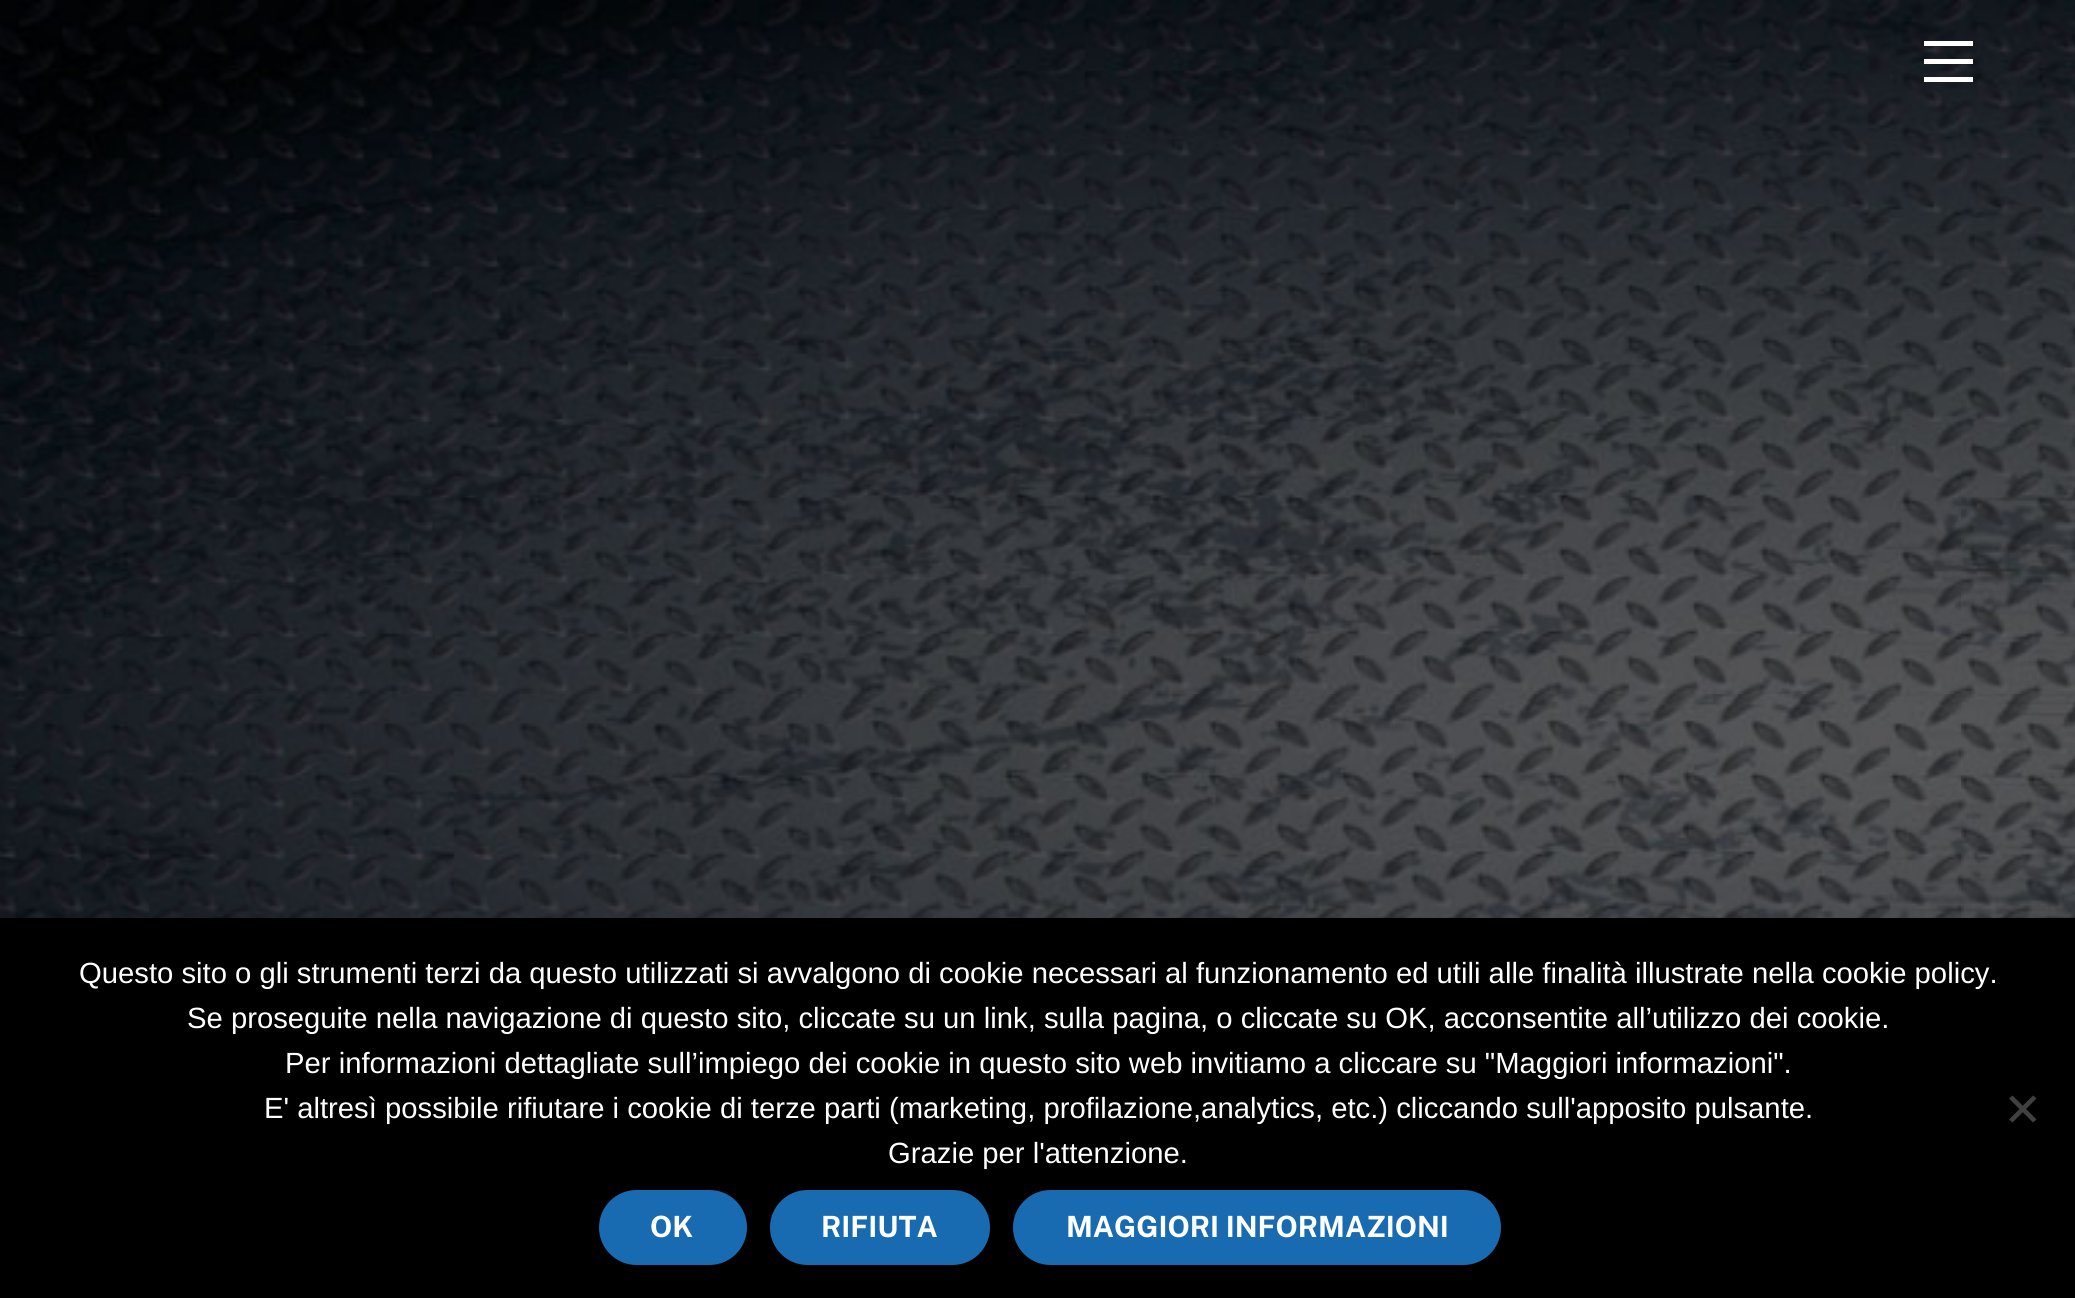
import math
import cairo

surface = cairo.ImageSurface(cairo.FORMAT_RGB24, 2075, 1298)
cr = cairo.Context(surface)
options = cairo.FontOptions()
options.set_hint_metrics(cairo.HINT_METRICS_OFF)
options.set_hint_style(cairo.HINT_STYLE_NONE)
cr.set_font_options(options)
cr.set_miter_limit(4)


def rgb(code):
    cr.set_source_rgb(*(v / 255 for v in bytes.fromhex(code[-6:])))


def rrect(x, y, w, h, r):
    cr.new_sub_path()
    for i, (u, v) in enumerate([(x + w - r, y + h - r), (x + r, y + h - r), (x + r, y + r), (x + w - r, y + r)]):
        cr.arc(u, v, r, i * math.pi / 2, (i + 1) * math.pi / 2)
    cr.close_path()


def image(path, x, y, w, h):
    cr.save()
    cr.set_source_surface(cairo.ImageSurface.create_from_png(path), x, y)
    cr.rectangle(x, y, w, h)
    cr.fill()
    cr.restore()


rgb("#ffffff")
cr.paint()
image("img/1.png", 0, 0, 2075, 918)
for x, y, w, h, color in [
    (1924, 77, 49, 5, "#ffffff"),
    (1924, 41, 49, 5, "#ffffff"),
    (1924, 59, 49, 5, "#ffffff"),
    (0, 918, 2075, 380, "#000000"),
]:
    rgb(color)
    cr.rectangle(x, y, w, h)
    cr.fill()
rgb("#404040")
cr.new_path()
cr.move_to(2033, 1095.5)
cr.line_to(2036.5, 1098.5)
cr.line_to(2012.5, 1122.5)
cr.line_to(2009, 1119.5)
cr.close_path()
cr.fill()
cr.new_path()
cr.move_to(2009, 1098.5)
cr.line_to(2012.5, 1095.5)
cr.line_to(2036.5, 1119.5)
cr.line_to(2033, 1122.5)
cr.close_path()
cr.fill()
rgb("#186bb1")
rrect(599, 1190, 148, 75, 37.5)
cr.fill()
rrect(770, 1190, 220, 75, 37.5)
cr.fill()
rrect(1013, 1190, 488, 75, 37.5)
cr.fill()
cr.select_font_face("Liberation Sans")
cr.set_font_size(29.25)
rgb("#ffffff")
for x, y, s in [
    (79, 983, "Questo sito o gli strumenti terzi da questo utilizzati si avvalgono di cookie necessari al funzionamento ed utili alle finalità illustrate nella cookie policy."),
    (187, 1028, "Se proseguite nella navigazione di questo sito, cliccate su un link, sulla pagina, o cliccate su OK, acconsentite all’utilizzo dei cookie."),
    (285, 1073, "Per informazioni dettagliate sull’impiego dei cookie in questo sito web invitiamo a cliccare su \"Maggiori informazioni\"."),
    (264, 1118, "E' altresì possibile rifiutare i cookie di terze parti (marketing, profilazione,analytics, etc.) cliccando sull'apposito pulsante."),
    (888, 1163, "Grazie per l'attenzione."),
]:
    cr.move_to(x, y)
    cr.show_text(s)
cr.select_font_face("Public Sans", cairo.FONT_SLANT_NORMAL, cairo.FONT_WEIGHT_BOLD)
for x, y, s in [
    (650, 1237, "OK"),
    (821, 1237, "RIFIUTA"),
    (1066, 1237, "MAGGIORI INFORMAZIONI"),
]:
    cr.move_to(x, y)
    cr.show_text(s)
surface.write_to_png("page.png")
